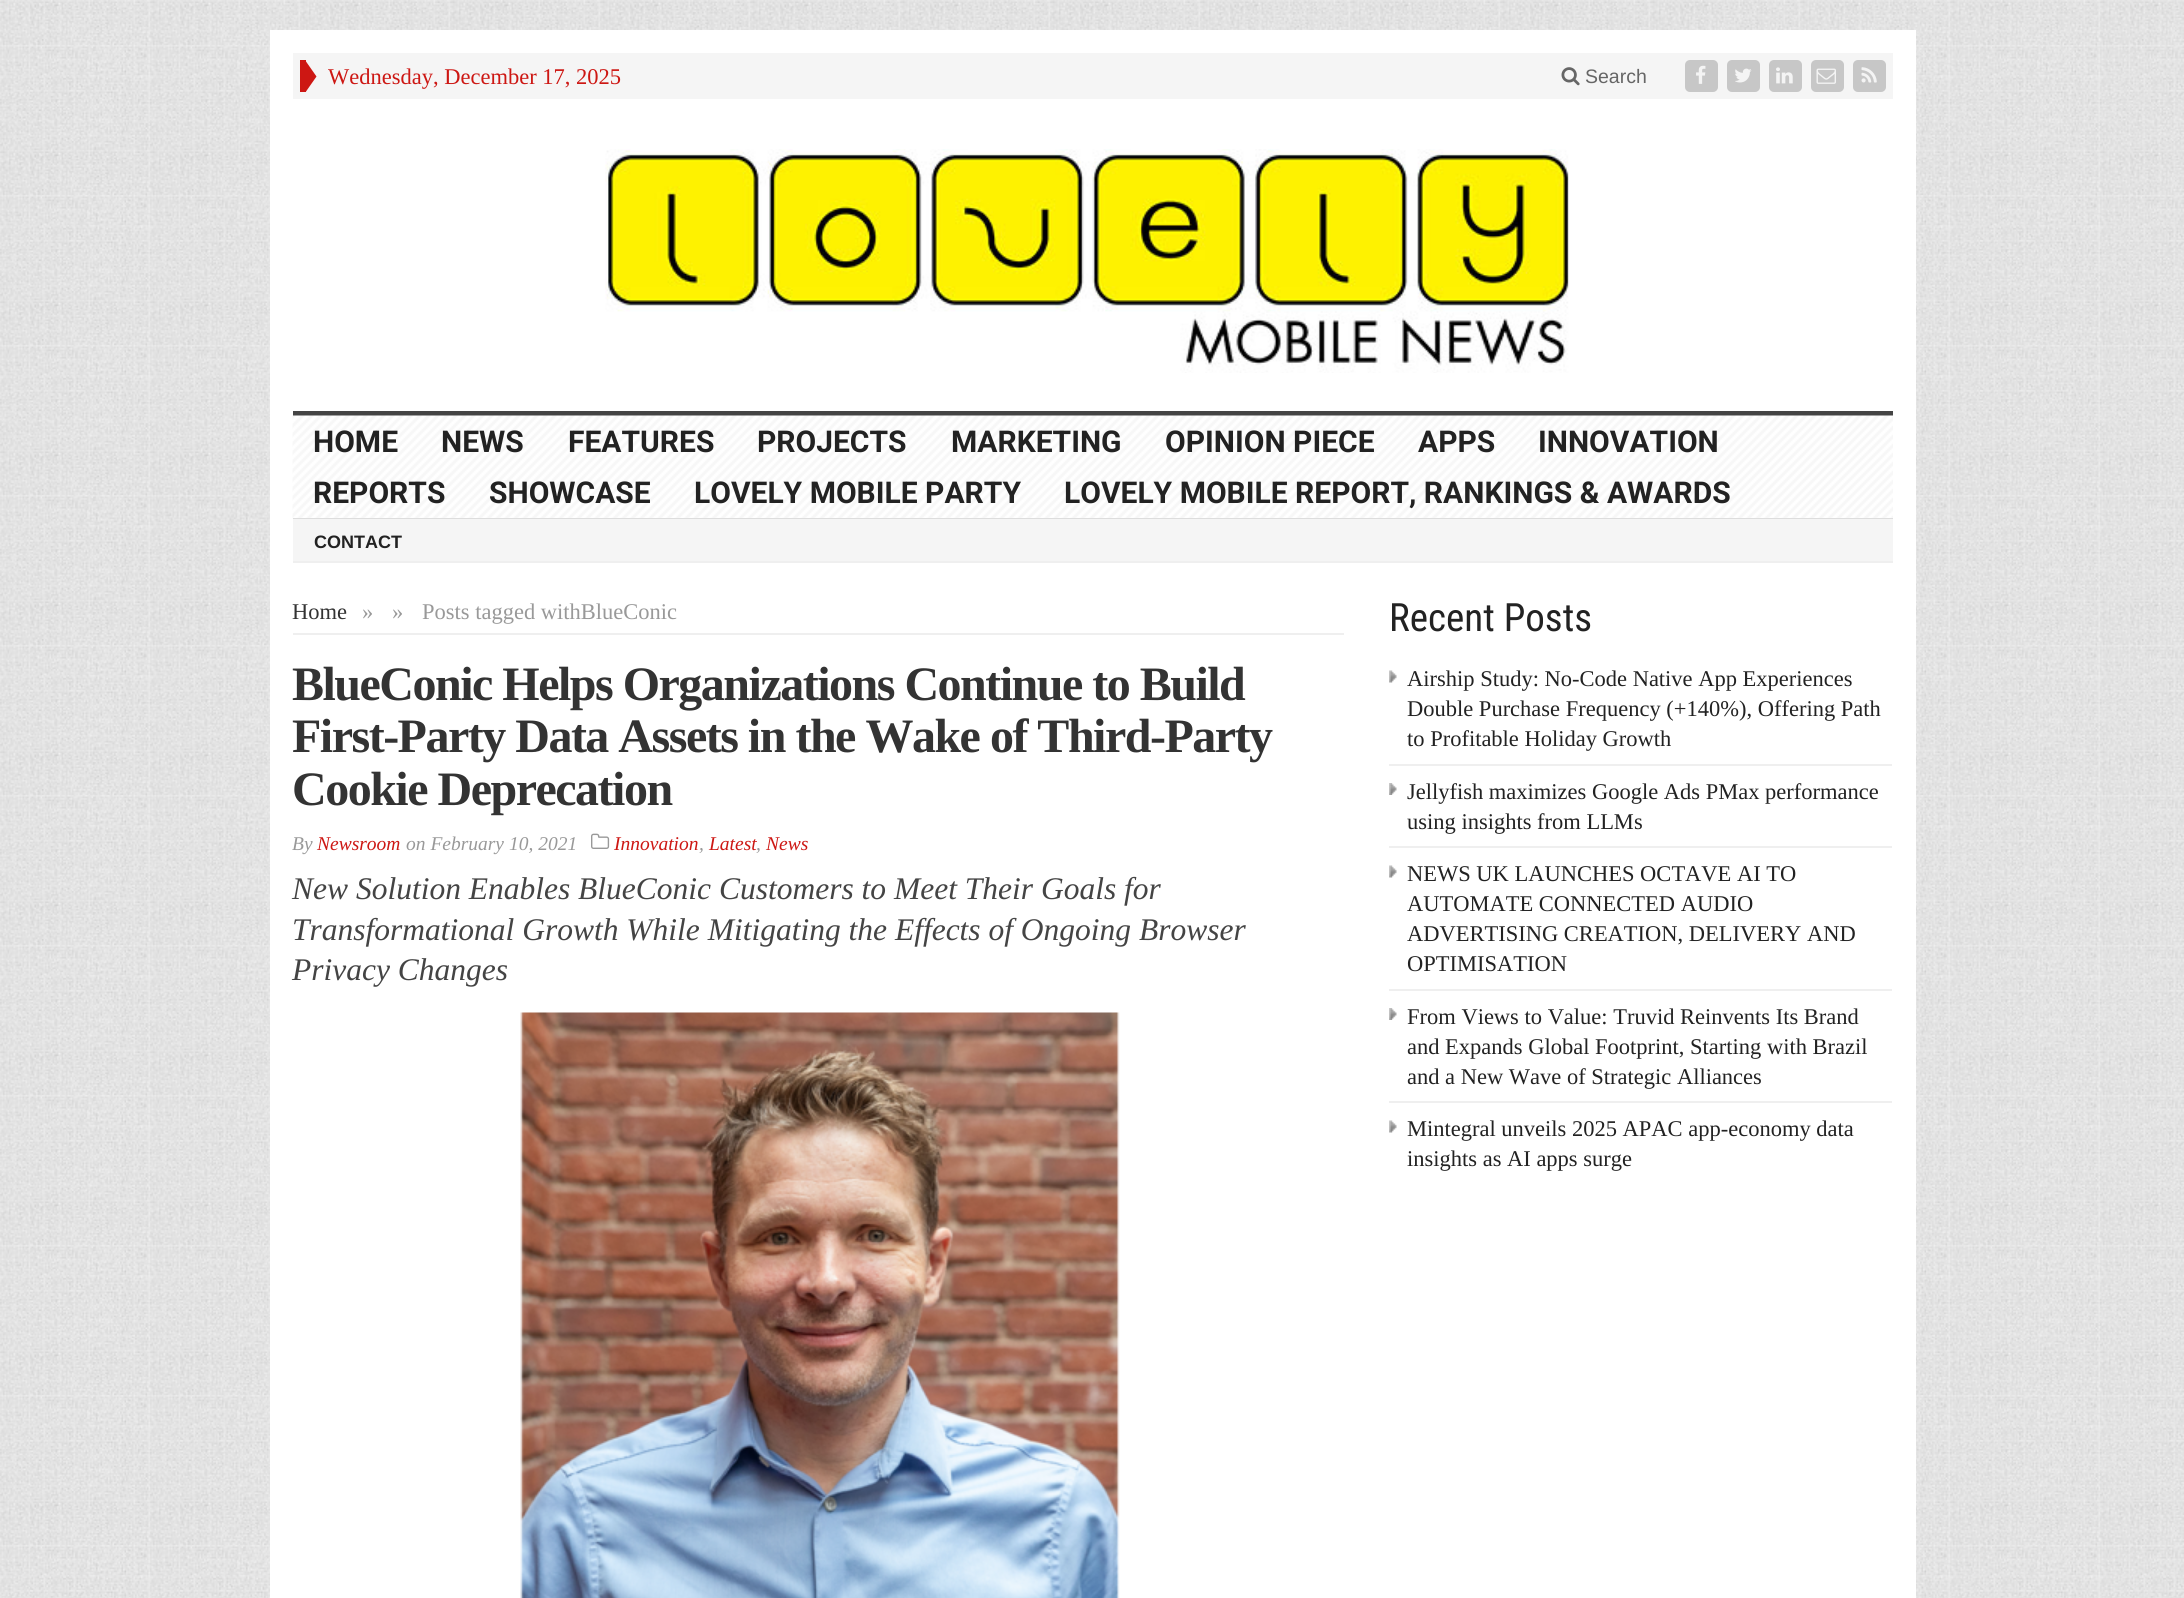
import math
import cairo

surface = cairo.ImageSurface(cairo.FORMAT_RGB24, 2184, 1598)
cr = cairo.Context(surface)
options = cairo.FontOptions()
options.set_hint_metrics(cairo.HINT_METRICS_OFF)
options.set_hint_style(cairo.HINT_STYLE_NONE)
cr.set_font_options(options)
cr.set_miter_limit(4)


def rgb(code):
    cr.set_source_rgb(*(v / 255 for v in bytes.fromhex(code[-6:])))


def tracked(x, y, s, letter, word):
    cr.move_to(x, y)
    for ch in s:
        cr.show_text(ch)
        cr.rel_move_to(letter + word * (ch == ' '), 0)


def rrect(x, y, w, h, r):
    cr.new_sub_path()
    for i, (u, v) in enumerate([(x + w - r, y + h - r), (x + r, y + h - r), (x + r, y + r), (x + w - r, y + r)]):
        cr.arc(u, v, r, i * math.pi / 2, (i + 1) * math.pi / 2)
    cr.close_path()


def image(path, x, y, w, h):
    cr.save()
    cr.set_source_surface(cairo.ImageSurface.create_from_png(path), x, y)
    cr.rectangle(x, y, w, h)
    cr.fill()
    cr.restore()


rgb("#ffffff")
cr.paint()
image("img/1.png", 0, 0, 2184, 1598)
for x, y, w, h, color in [
    (270, 30, 1646, 1568, "#ffffff"),
    (293, 53, 1600, 46, "#f5f5f5"),
    (300, 60, 6, 32, "#cd1713"),
]:
    rgb(color)
    cr.rectangle(x, y, w, h)
    cr.fill()
cr.new_path()
cr.move_to(306, 91.5)
cr.line_to(306, 61.5)
cr.line_to(316.5, 76.5)
cr.close_path()
cr.fill()
image("img/2.png", 1561, 67, 19, 19)
rgb("#c7c7c7")
rrect(1685, 60, 33, 32, 5)
cr.fill()
image("img/3.png", 1696, 65, 10, 19)
rrect(1727, 60, 33, 32, 5)
cr.fill()
image("img/4.png", 1735, 68, 17, 15)
rrect(1769, 60, 33, 32, 5)
cr.fill()
image("img/5.png", 1776, 67, 17, 17)
rrect(1811, 60, 33, 32, 5)
cr.fill()
image("img/6.png", 1816, 68, 20, 16)
rrect(1853, 60, 33, 32, 5)
cr.fill()
image("img/7.png", 1861, 67, 16, 16)
rgb("#444444")
cr.rectangle(293, 411, 1600, 5)
cr.fill()
image("img/8.png", 605, 149, 964, 224)
image("img/9.png", 292, 415, 1601, 104)
for x, y, w, h, color in [
    (293, 518, 1600, 1, "#dddddd"),
    (293, 519, 1600, 42, "#f5f5f5"),
    (293, 561, 1600, 2, "#efefef"),
    (293, 633, 1051, 2, "#efefef"),
]:
    rgb(color)
    cr.rectangle(x, y, w, h)
    cr.fill()
image("img/10.png", 591, 833, 19, 16)
image("img/11.png", 520, 1012, 600, 586)
image("img/12.png", 1389, 670, 8, 13)
cr.rectangle(1389, 764, 503, 2)
cr.fill()
image("img/13.png", 1389, 783, 8, 12)
cr.rectangle(1389, 846, 503, 2)
cr.fill()
image("img/12.png", 1389, 865, 8, 13)
cr.rectangle(1389, 989, 503, 2)
cr.fill()
image("img/13.png", 1389, 1008, 8, 12)
cr.rectangle(1389, 1101, 503, 2)
cr.fill()
image("img/12.png", 1389, 1120, 8, 13)
cr.select_font_face("Liberation Serif")
cr.set_font_size(22.5)
rgb("#cd1713")
cr.move_to(328, 84)
cr.show_text("Wednesday, December 17, 2025")
cr.select_font_face("Liberation Sans")
cr.set_font_size(19.5)
rgb("#666666")
cr.move_to(1585, 83)
cr.show_text("Search")
cr.select_font_face("Roboto", cairo.FONT_SLANT_NORMAL, cairo.FONT_WEIGHT_BOLD)
cr.set_font_size(30)
rgb("#222222")
for x, y, s in [
    (313, 452, "HOME"),
    (441, 452, "NEWS"),
    (568, 452, "FEATURES"),
    (757, 452, "PROJECTS"),
    (951, 452, "MARKETING"),
    (1165, 452, "OPINION PIECE"),
    (1418, 452, "APPS"),
    (1538, 452, "INNOVATION"),
    (313, 503, "REPORTS"),
    (489, 503, "SHOWCASE"),
    (694, 503, "LOVELY MOBILE PARTY"),
    (1064, 503, "LOVELY MOBILE REPORT, RANKINGS & AWARDS"),
]:
    cr.move_to(x, y)
    cr.show_text(s)
cr.select_font_face("Liberation Sans", cairo.FONT_SLANT_NORMAL, cairo.FONT_WEIGHT_BOLD)
cr.set_font_size(18)
cr.move_to(314, 548)
cr.show_text("CONTACT")
cr.select_font_face("Liberation Serif")
cr.set_font_size(22.5)
rgb("#333333")
cr.move_to(292, 619)
cr.show_text("Home")
rgb("#999999")
for x, y, s in [
    (362, 619, "»"),
    (392, 619, "»"),
    (422, 619, "Posts tagged withBlueConic"),
]:
    cr.move_to(x, y)
    cr.show_text(s)
cr.select_font_face("Liberation Serif", cairo.FONT_SLANT_NORMAL, cairo.FONT_WEIGHT_BOLD)
cr.set_font_size(48)
rgb("#333333")
for x, y, s in [
    (292, 700, "BlueConic Helps Organizations Continue to Build"),
    (292, 752, "First-Party Data Assets in the Wake of Third-Party"),
    (292, 805, "Cookie Deprecation"),
]:
    tracked(x, y, s, -1.5, 0)
cr.select_font_face("Liberation Serif", cairo.FONT_SLANT_ITALIC)
cr.set_font_size(19.5)
rgb("#999999")
cr.move_to(292, 850)
cr.show_text("By")
rgb("#cd1713")
cr.move_to(317, 850)
cr.show_text("Newsroom")
rgb("#999999")
cr.move_to(406, 850)
cr.show_text("on February 10, 2021")
rgb("#cd1713")
cr.move_to(614, 850)
cr.show_text("Innovation")
rgb("#999999")
cr.move_to(699, 850)
cr.show_text(",")
rgb("#cd1713")
cr.move_to(709, 850)
cr.show_text("Latest")
rgb("#999999")
cr.move_to(756, 850)
cr.show_text(",")
rgb("#cd1713")
cr.move_to(766, 850)
cr.show_text("News")
cr.set_font_size(31.5)
rgb("#444444")
for x, y, s in [
    (292, 899, "New Solution Enables BlueConic Customers to Meet Their Goals for"),
    (292, 940, "Transformational Growth While Mitigating the Effects of Ongoing Browser"),
    (292, 980, "Privacy Changes"),
]:
    cr.move_to(x, y)
    cr.show_text(s)
cr.select_font_face("Roboto Condensed")
cr.set_font_size(39)
rgb("#222222")
cr.move_to(1389, 631)
cr.show_text("Recent Posts")
cr.select_font_face("Liberation Serif")
cr.set_font_size(22.5)
for x, y, s in [
    (1407, 686, "Airship Study: No-Code Native App Experiences"),
    (1407, 716, "Double Purchase Frequency (+140%), Offering Path"),
    (1407, 746, "to Profitable Holiday Growth"),
    (1407, 799, "Jellyfish maximizes Google Ads PMax performance"),
    (1407, 829, "using insights from LLMs"),
    (1407, 881, "NEWS UK LAUNCHES OCTAVE AI TO"),
    (1407, 911, "AUTOMATE CONNECTED AUDIO"),
    (1407, 941, "ADVERTISING CREATION, DELIVERY AND"),
    (1407, 971, "OPTIMISATION"),
    (1407, 1024, "From Views to Value: Truvid Reinvents Its Brand"),
    (1407, 1054, "and Expands Global Footprint, Starting with Brazil"),
    (1407, 1084, "and a New Wave of Strategic Alliances"),
    (1407, 1136, "Mintegral unveils 2025 APAC app-economy data"),
    (1407, 1166, "insights as AI apps surge"),
]:
    cr.move_to(x, y)
    cr.show_text(s)
surface.write_to_png("page.png")
